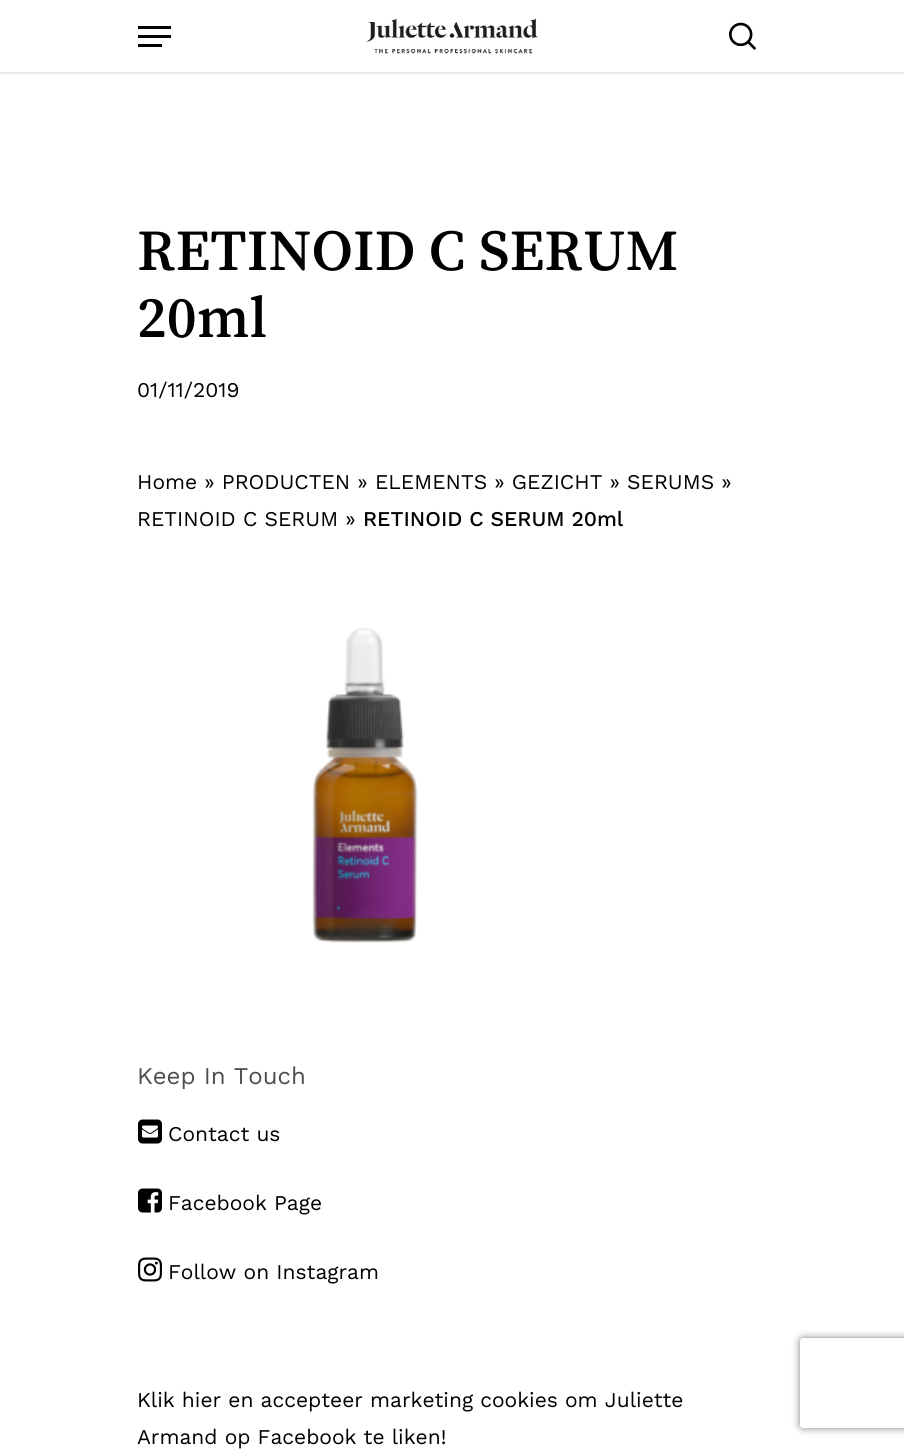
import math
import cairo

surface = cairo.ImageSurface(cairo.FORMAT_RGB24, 904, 1449)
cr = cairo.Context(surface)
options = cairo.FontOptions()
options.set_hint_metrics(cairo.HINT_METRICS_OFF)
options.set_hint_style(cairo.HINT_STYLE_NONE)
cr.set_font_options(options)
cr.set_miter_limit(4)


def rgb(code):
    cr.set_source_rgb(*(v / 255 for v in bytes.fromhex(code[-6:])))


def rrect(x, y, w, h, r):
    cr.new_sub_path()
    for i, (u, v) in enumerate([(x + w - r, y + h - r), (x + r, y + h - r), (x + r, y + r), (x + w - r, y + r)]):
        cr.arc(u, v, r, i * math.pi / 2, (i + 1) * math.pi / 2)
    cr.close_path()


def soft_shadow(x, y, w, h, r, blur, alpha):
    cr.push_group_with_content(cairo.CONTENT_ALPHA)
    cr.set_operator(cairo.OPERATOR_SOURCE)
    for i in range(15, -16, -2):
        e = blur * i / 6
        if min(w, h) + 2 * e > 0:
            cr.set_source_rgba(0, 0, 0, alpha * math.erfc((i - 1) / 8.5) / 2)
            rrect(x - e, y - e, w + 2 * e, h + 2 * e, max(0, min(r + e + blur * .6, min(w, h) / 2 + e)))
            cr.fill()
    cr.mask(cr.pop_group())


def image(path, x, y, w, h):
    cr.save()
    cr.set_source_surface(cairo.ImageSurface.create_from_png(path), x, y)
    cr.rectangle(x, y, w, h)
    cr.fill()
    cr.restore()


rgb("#ffffff")
cr.paint()
rgb("#ebebeb")
cr.new_path()
cr.move_to(0, 72)
cr.line_to(0, 74)
cr.line_to(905, 74)
cr.line_to(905, 2)
cr.line_to(904, 2)
cr.line_to(904, 72)
cr.close_path()
cr.fill()
image("img/1.png", 366, 18, 172, 36)
for x, y, w, h, color in [
    (138, 26, 33, 3, "#000000"),
    (138, 44, 24, 3, "#000000"),
    (138, 35, 33, 3, "#000000"),
]:
    rgb(color)
    cr.rectangle(x, y, w, h)
    cr.fill()
image("img/2.png", 729, 22, 27, 28)
image("img/3.png", 312, 627, 106, 316)
image("img/4.png", 138, 1119, 24, 25)
image("img/5.png", 138, 1188, 24, 25)
image("img/6.png", 138, 1257, 24, 25)
cr.save()
cr.set_fill_rule(cairo.FILL_RULE_EVEN_ODD)
cr.new_path()
cr.move_to(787, 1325)
cr.line_to(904, 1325)
cr.line_to(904, 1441)
cr.line_to(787, 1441)
cr.close_path()
cr.move_to(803, 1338)
cr.line_to(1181, 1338)
cr.curve_to(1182.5, 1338, 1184, 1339.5, 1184, 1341)
cr.line_to(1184, 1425)
cr.curve_to(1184, 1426.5, 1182.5, 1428, 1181, 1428)
cr.line_to(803, 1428)
cr.curve_to(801.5, 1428, 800, 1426.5, 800, 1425)
cr.line_to(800, 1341)
cr.curve_to(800, 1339.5, 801.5, 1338, 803, 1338)
cr.close_path()
cr.clip()
rgb("#808080")
soft_shadow(800, 1338, 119, 90, 3, 4, 1)
cr.restore()
cr.select_font_face("Song Myung")
cr.set_font_size(60.5)
cr.move_to(137, 270)
cr.show_text("RETINOID C SERUM")
cr.move_to(137, 337)
cr.show_text("20ml")
cr.select_font_face("Work Sans")
cr.set_font_size(21)
for x, y, s in [
    (137, 397, "01/11/2019"),
    (137, 489, "Home » PRODUCTEN » ELEMENTS » GEZICHT » SERUMS »"),
    (137, 526, "RETINOID C SERUM »"),
]:
    cr.move_to(x, y)
    cr.show_text(s)
cr.select_font_face("Work Sans Medium")
cr.move_to(363, 526)
cr.show_text("RETINOID C SERUM 20ml")
cr.select_font_face("Work Sans")
cr.set_font_size(24)
rgb("#4d4d4d")
cr.move_to(137, 1084)
cr.show_text("Keep In Touch")
cr.set_font_size(21)
rgb("#000000")
for x, y, s in [
    (168, 1141, "Contact us"),
    (168, 1210, "Facebook Page"),
    (168, 1279, "Follow on Instagram"),
    (137, 1407, "Klik hier en accepteer marketing cookies om Juliette"),
    (137, 1444, "Armand op Facebook te liken!"),
]:
    cr.move_to(x, y)
    cr.show_text(s)
surface.write_to_png("page.png")
